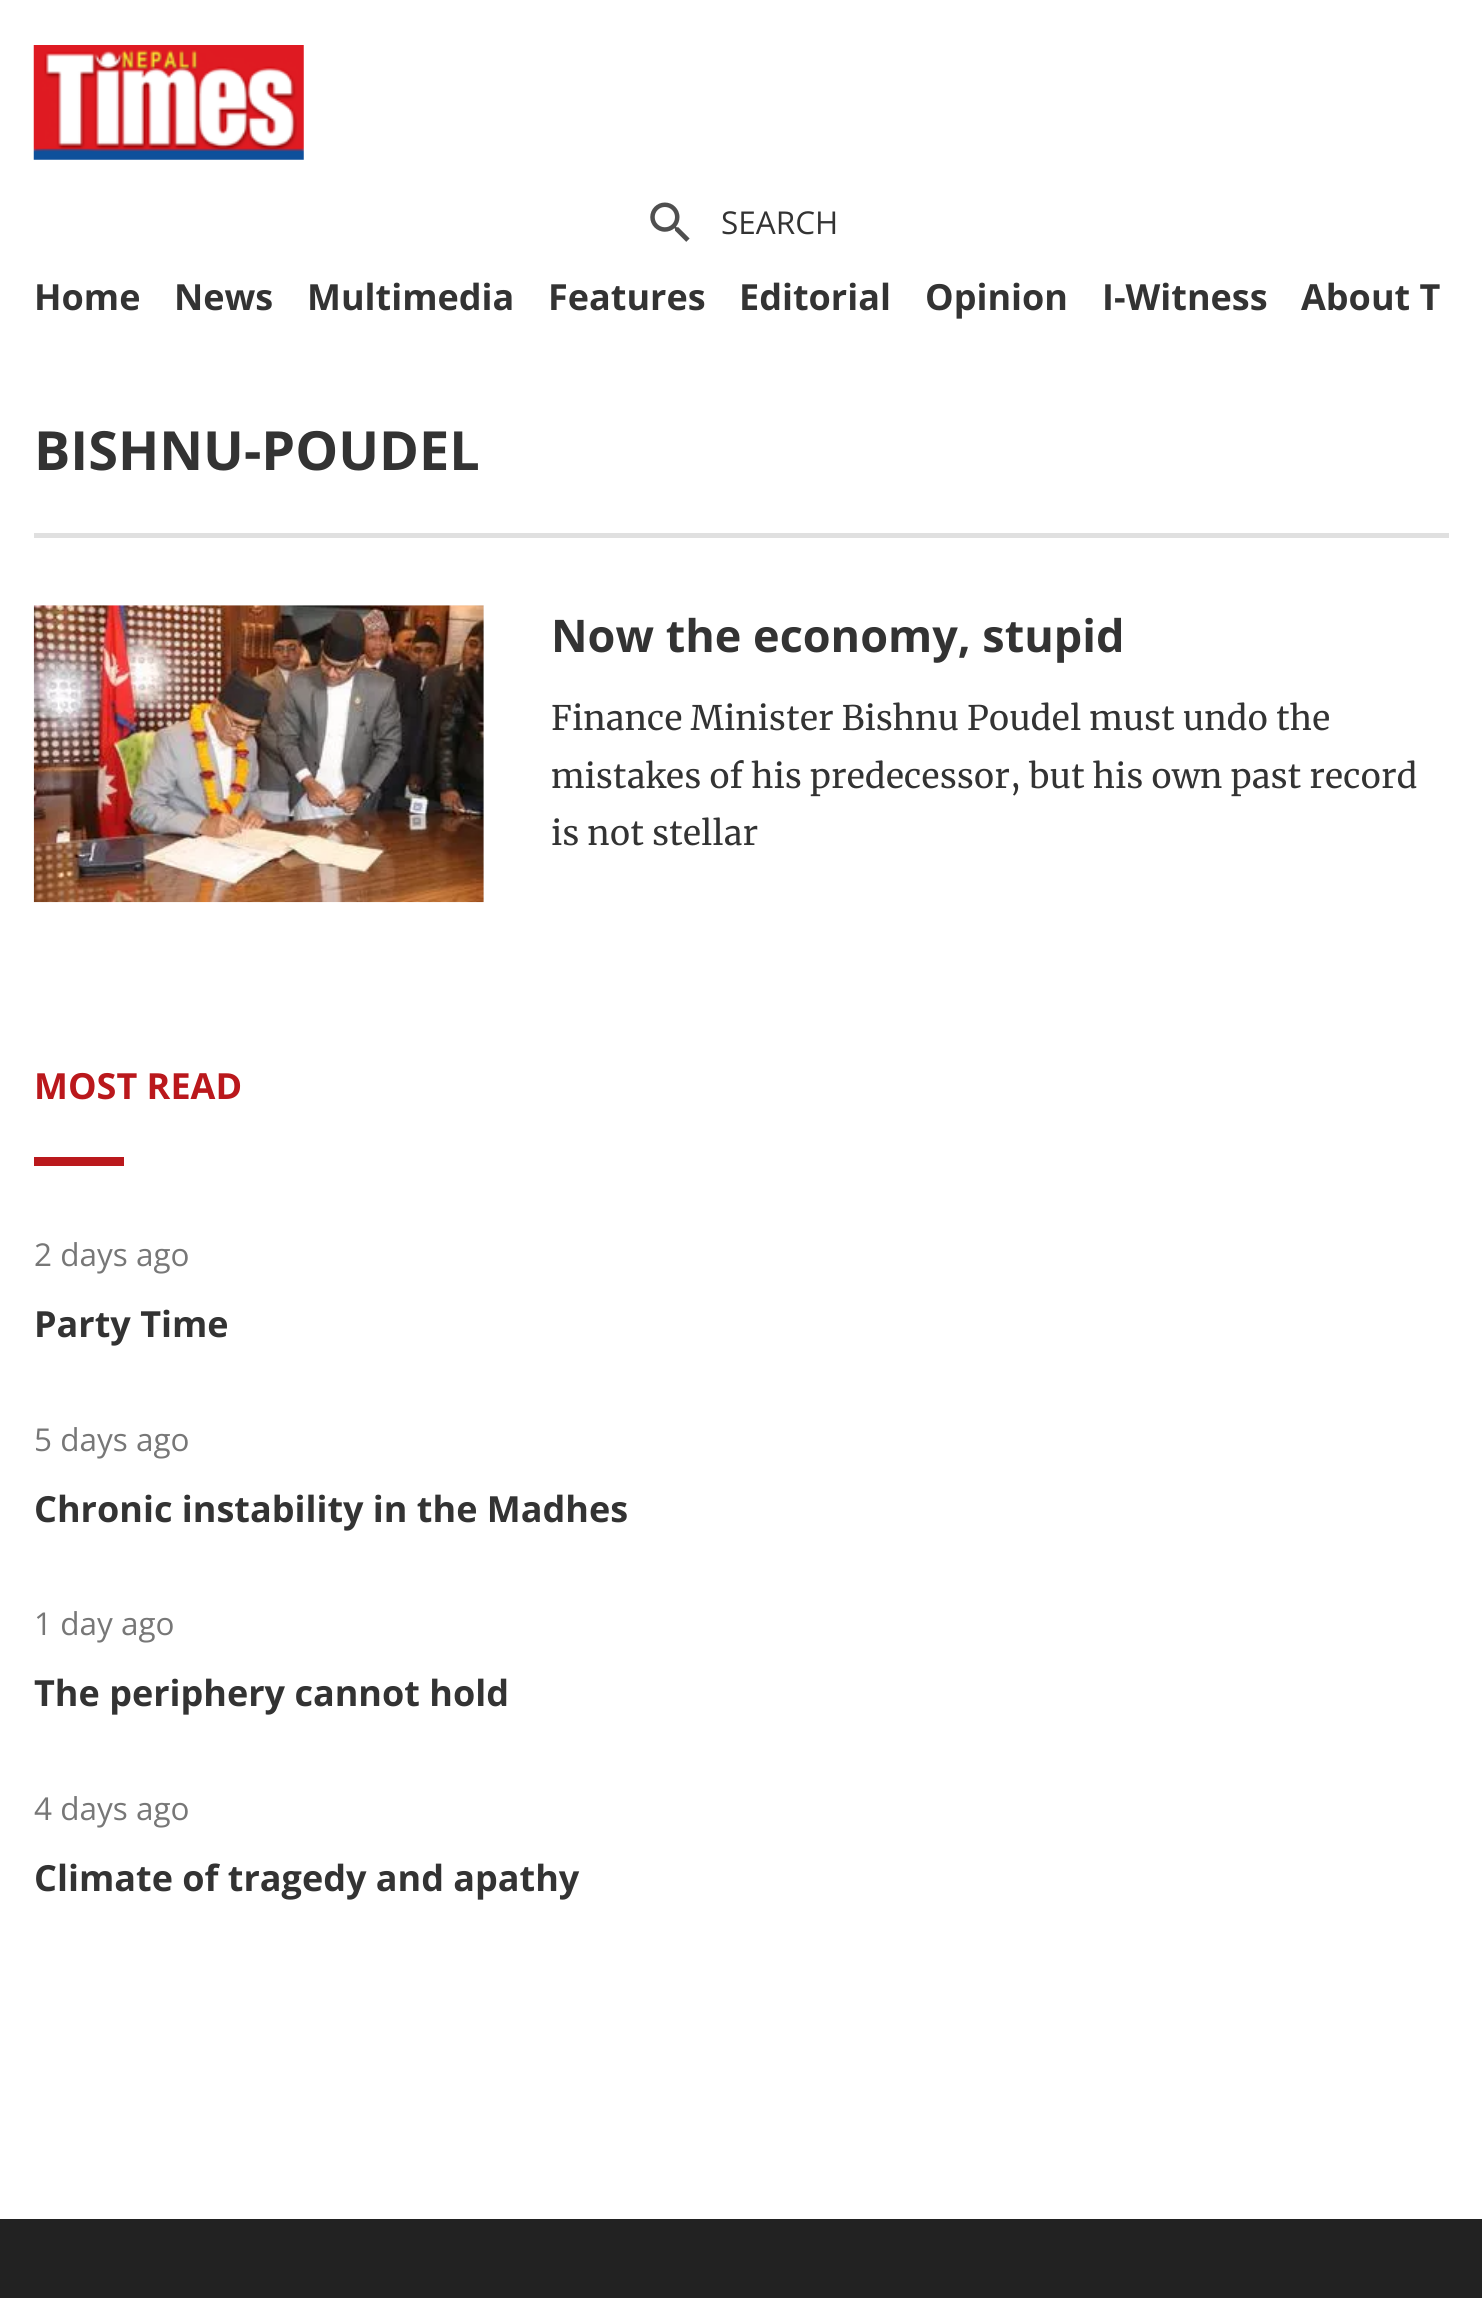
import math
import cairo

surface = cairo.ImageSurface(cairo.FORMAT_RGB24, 1482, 2298)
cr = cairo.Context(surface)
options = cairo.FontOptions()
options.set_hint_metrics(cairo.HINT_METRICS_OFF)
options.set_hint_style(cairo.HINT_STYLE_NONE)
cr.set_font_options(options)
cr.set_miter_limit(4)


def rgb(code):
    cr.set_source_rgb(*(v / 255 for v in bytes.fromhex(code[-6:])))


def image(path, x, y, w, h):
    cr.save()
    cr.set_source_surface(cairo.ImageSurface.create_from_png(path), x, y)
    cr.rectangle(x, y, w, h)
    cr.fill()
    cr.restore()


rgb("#ffffff")
cr.paint()
image("img/1.png", 33, 45, 271, 115)
image("img/2.png", 650, 202, 40, 40)
rgb("#e0e0e0")
cr.rectangle(34, 533, 1415, 5)
cr.fill()
rgb("#f3f3f3")
cr.rectangle(34, 605, 450, 297)
cr.fill()
image("img/3.png", 33, 605, 451, 298)
rgb("#ba181c")
cr.rectangle(34, 1157, 90, 9)
cr.fill()
rgb("#222222")
cr.rectangle(0, 2219, 1482, 79)
cr.fill()
cr.select_font_face("Open Sans")
cr.set_font_size(31.5)
rgb("#333333")
cr.move_to(721, 234)
cr.show_text("SEARCH")
cr.select_font_face("Open Sans", cairo.FONT_SLANT_NORMAL, cairo.FONT_WEIGHT_BOLD)
cr.set_font_size(36)
for x, y, s in [
    (34, 310, "Home"),
    (174, 310, "News"),
    (307, 310, "Multimedia"),
    (548, 310, "Features"),
    (739, 310, "Editorial"),
    (925, 310, "Opinion"),
    (1102, 310, "I-Witness"),
    (1301, 310, "About T"),
]:
    cr.move_to(x, y)
    cr.show_text(s)
cr.set_font_size(54)
cr.move_to(34, 470)
cr.show_text("BISHNU-POUDEL")
cr.set_font_size(45)
cr.move_to(551, 652)
cr.show_text("Now the economy, stupid")
cr.select_font_face("Merriweather")
cr.set_font_size(33.75)
for x, y, s in [
    (551, 730, "Finance Minister Bishnu Poudel must undo the"),
    (551, 788, "mistakes of his predecessor, but his own past record"),
    (551, 845, "is not stellar"),
]:
    cr.move_to(x, y)
    cr.show_text(s)
cr.select_font_face("Open Sans", cairo.FONT_SLANT_NORMAL, cairo.FONT_WEIGHT_BOLD)
cr.set_font_size(36)
rgb("#ba181c")
cr.move_to(34, 1099)
cr.show_text("MOST READ")
cr.select_font_face("Open Sans")
cr.set_font_size(31.5)
rgb("#777777")
cr.move_to(34, 1266)
cr.show_text("2 days ago")
cr.select_font_face("Open Sans", cairo.FONT_SLANT_NORMAL, cairo.FONT_WEIGHT_BOLD)
cr.set_font_size(36)
rgb("#333333")
cr.move_to(34, 1337)
cr.show_text("Party Time")
cr.select_font_face("Open Sans")
cr.set_font_size(31.5)
rgb("#777777")
cr.move_to(34, 1451)
cr.show_text("5 days ago")
cr.select_font_face("Open Sans", cairo.FONT_SLANT_NORMAL, cairo.FONT_WEIGHT_BOLD)
cr.set_font_size(36)
rgb("#333333")
cr.move_to(34, 1522)
cr.show_text("Chronic instability in the Madhes")
cr.select_font_face("Open Sans")
cr.set_font_size(31.5)
rgb("#777777")
cr.move_to(34, 1635)
cr.show_text("1 day ago")
cr.select_font_face("Open Sans", cairo.FONT_SLANT_NORMAL, cairo.FONT_WEIGHT_BOLD)
cr.set_font_size(36)
rgb("#333333")
cr.move_to(34, 1706)
cr.show_text("The periphery cannot hold")
cr.select_font_face("Open Sans")
cr.set_font_size(31.5)
rgb("#777777")
cr.move_to(34, 1820)
cr.show_text("4 days ago")
cr.select_font_face("Open Sans", cairo.FONT_SLANT_NORMAL, cairo.FONT_WEIGHT_BOLD)
cr.set_font_size(36)
rgb("#333333")
cr.move_to(34, 1891)
cr.show_text("Climate of tragedy and apathy")
surface.write_to_png("page.png")
